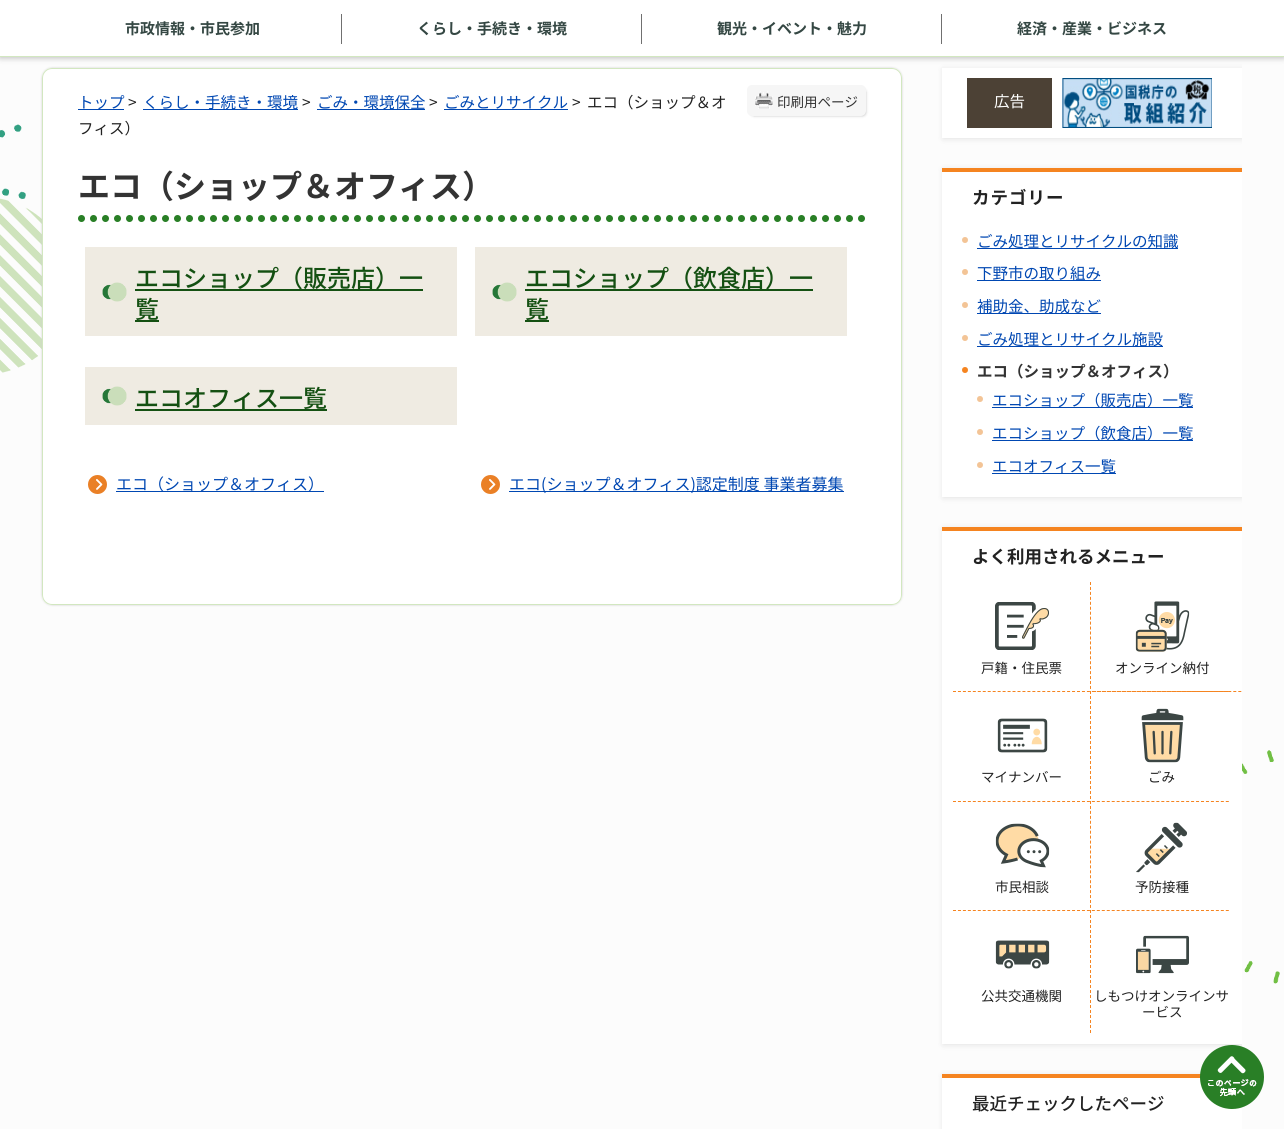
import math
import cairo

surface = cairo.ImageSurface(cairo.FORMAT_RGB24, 1284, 1129)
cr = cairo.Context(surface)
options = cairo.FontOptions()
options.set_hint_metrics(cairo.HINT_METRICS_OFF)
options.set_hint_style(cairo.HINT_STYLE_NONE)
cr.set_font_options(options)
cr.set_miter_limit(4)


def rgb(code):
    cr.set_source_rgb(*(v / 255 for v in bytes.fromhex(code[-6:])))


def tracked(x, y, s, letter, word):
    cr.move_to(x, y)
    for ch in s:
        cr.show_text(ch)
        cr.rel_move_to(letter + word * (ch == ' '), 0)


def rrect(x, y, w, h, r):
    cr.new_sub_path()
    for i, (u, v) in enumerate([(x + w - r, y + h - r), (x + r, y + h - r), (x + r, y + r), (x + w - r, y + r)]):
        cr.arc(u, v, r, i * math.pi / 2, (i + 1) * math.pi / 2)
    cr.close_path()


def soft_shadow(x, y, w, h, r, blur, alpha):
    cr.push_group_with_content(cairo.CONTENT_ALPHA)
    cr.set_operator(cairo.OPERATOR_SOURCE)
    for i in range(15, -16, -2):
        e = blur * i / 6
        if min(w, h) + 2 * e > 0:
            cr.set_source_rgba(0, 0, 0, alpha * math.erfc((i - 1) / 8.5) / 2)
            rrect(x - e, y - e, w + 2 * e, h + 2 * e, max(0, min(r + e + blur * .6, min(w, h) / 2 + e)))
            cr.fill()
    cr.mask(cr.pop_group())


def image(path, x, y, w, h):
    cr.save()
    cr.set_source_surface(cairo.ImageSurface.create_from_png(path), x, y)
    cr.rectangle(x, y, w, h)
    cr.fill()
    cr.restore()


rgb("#fcfcfc")
cr.paint()
rgb("#202124")
soft_shadow(0, 1, 1284, 57, 0, 3, 0.28)
for x, y, w, h, color in [
    (0, 0, 1284, 56, "#ffffff"),
    (0, 56, 1284, 1, "#d2e7c0"),
    (341, 14, 1, 30, "#707070"),
    (641, 14, 1, 30, "#707070"),
    (941, 14, 1, 30, "#707070"),
]:
    rgb(color)
    cr.rectangle(x, y, w, h)
    cr.fill()
image("img/1.png", 0, 124, 42, 249)
cr.save()
cr.set_fill_rule(cairo.FILL_RULE_EVEN_ODD)
cr.new_path()
cr.move_to(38, 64)
cr.line_to(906, 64)
cr.line_to(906, 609)
cr.line_to(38, 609)
cr.close_path()
cr.move_to(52, 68)
cr.line_to(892, 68)
cr.curve_to(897.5, 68, 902, 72.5, 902, 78)
cr.line_to(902, 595)
cr.curve_to(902, 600.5, 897.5, 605, 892, 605)
cr.line_to(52, 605)
cr.curve_to(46.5, 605, 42, 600.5, 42, 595)
cr.line_to(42, 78)
cr.curve_to(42, 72.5, 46.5, 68, 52, 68)
cr.close_path()
cr.clip()
rgb("#cfcfcf")
soft_shadow(42, 68, 860, 537, 10, 1, 1)
cr.restore()
rgb("#ffffff")
rrect(42.5, 68.5, 859, 536, 9.5)
cr.fill_preserve()
rgb("#d2e7c0")
cr.set_line_width(1)
cr.stroke()
for x, y, w, h, color in [
    (78, 109, 46, 1, "#0047b2"),
    (143, 109, 155, 1, "#0047b2"),
    (317, 109, 108, 1, "#0047b2"),
    (444, 109, 124, 1, "#0047b2"),
]:
    rgb(color)
    cr.rectangle(x, y, w, h)
    cr.fill()
rgb("#000000")
soft_shadow(753, 91, 111, 23, 1, 2, 0.75)
rgb("#f6f6f6")
rrect(747, 85, 119, 31, 5)
cr.fill()
image("img/2.png", 755, 91, 18, 18)
image("img/3.png", 78, 215, 787, 7)
rgb("#efebe2")
cr.rectangle(85, 247, 372, 89)
cr.fill()
rgb("#145012")
cr.rectangle(135, 289, 288, 2)
cr.fill()
image("img/4.png", 102, 282, 25, 20)
for x, y, w, h, color in [
    (135, 320, 24, 2, "#145012"),
    (475, 247, 372, 89, "#efebe2"),
    (525, 289, 288, 2, "#145012"),
]:
    rgb(color)
    cr.rectangle(x, y, w, h)
    cr.fill()
image("img/5.png", 492, 282, 25, 20)
cr.rectangle(525, 320, 24, 2)
cr.fill()
rgb("#efebe2")
cr.rectangle(85, 367, 372, 58)
cr.fill()
image("img/4.png", 102, 386, 25, 20)
rgb("#145012")
cr.rectangle(135, 409, 192, 2)
cr.fill()
image("img/6.png", 88, 475, 19, 19)
rgb("#0047b2")
cr.rectangle(116, 491, 208, 1)
cr.fill()
image("img/6.png", 481, 475, 19, 19)
cr.rectangle(509, 491, 335, 1)
cr.fill()
cr.save()
cr.rectangle(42, 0, 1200, 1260)
cr.clip()
rgb("#000000")
soft_shadow(943, 69, 300, 70, 0, 3, 0.1)
cr.restore()
rgb("#ffffff")
cr.rectangle(942, 68, 300, 70)
cr.fill()
rgb("#4c4135")
cr.rectangle(967, 78, 85, 50)
cr.fill()
image("img/7.png", 1062, 78, 150, 50)
cr.save()
cr.rectangle(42, 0, 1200, 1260)
cr.clip()
rgb("#000000")
soft_shadow(943, 169, 300, 329, 0, 3, 0.1)
cr.restore()
rgb("#ffffff")
cr.rectangle(942, 172, 300, 325)
cr.fill()
rgb("#f58420")
cr.rectangle(942, 168, 300, 4)
cr.fill()
rgb("#f3c496")
cr.arc(965, 240, 3, 0, 2 * math.pi)
cr.fill()
rgb("#0047b2")
cr.rectangle(977, 248, 201, 1)
cr.fill()
rgb("#f3c496")
cr.arc(965, 272, 3, 0, 2 * math.pi)
cr.fill()
rgb("#0047b2")
cr.rectangle(977, 280, 124, 1)
cr.fill()
rgb("#f3c496")
cr.arc(965, 305, 3, 0, 2 * math.pi)
cr.fill()
rgb("#0047b2")
cr.rectangle(977, 313, 124, 1)
cr.fill()
rgb("#f3c496")
cr.arc(965, 338, 3, 0, 2 * math.pi)
cr.fill()
rgb("#0047b2")
cr.rectangle(977, 346, 186, 1)
cr.fill()
rgb("#f58420")
cr.arc(965, 370, 3, 0, 2 * math.pi)
cr.fill()
rgb("#f3c496")
cr.arc(980, 399, 3, 0, 2 * math.pi)
cr.fill()
rgb("#0047b2")
cr.rectangle(992, 407, 201, 1)
cr.fill()
rgb("#f3c496")
cr.arc(980, 432, 3, 0, 2 * math.pi)
cr.fill()
rgb("#0047b2")
cr.rectangle(992, 440, 201, 1)
cr.fill()
rgb("#f3c496")
cr.arc(980, 465, 3, 0, 2 * math.pi)
cr.fill()
rgb("#0047b2")
cr.rectangle(992, 473, 124, 1)
cr.fill()
image("img/16.png", 1242, 750, 38, 234)
cr.save()
cr.rectangle(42, 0, 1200, 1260)
cr.clip()
rgb("#000000")
soft_shadow(943, 528, 300, 517, 0, 3, 0.1)
cr.restore()
rgb("#ffffff")
cr.rectangle(942, 531, 300, 513)
cr.fill()
rgb("#f58420")
cr.rectangle(942, 527, 300, 4)
cr.fill()
image("img/8.png", 995, 602, 54, 48)
cr.new_path()
cr.move_to(1090.5, 582)
cr.line_to(1090.5, 689)
cr.set_dash([3, 1.95])
cr.stroke()
image("img/9.png", 1135, 601, 55, 51)
cr.new_path()
cr.move_to(1090.5, 691)
cr.line_to(1090.5, 799)
cr.set_dash([3, 2])
cr.stroke()
cr.new_path()
cr.move_to(953, 691.5)
cr.line_to(1229, 691.5)
cr.set_dash([3, 1.96])
cr.stroke()
image("img/10.png", 997, 718, 51, 35)
cr.save()
cr.rectangle(42, 0, 1200, 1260)
cr.clip()
cr.new_path()
cr.move_to(1093, 691.5)
cr.line_to(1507, 691.5)
cr.set_dash([3, 2.01])
cr.stroke()
cr.restore()
image("img/11.png", 1141, 708, 43, 55)
cr.new_path()
cr.move_to(1090.5, 801)
cr.line_to(1090.5, 908)
cr.set_dash([3, 1.95])
cr.stroke()
cr.new_path()
cr.move_to(953, 801.5)
cr.line_to(1229, 801.5)
cr.set_dash([3, 1.96])
cr.stroke()
image("img/12.png", 995, 823, 55, 45)
image("img/13.png", 1136, 822, 51, 51)
cr.new_path()
cr.move_to(1090.5, 910)
cr.line_to(1090.5, 1033)
cr.set_dash([3, 2])
cr.stroke()
cr.new_path()
cr.move_to(953, 910.5)
cr.line_to(1229, 910.5)
cr.set_dash([3, 1.96])
cr.stroke()
image("img/14.png", 995, 940, 55, 29)
image("img/15.png", 1136, 935, 53, 39)
cr.save()
cr.rectangle(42, 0, 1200, 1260)
cr.clip()
rgb("#000000")
soft_shadow(943, 1075, 300, 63, 0, 3, 0.1)
cr.restore()
rgb("#ffffff")
cr.rectangle(942, 1078, 300, 51)
cr.fill()
rgb("#f58420")
cr.rectangle(942, 1074, 259, 4)
cr.fill()
image("img/17.png", 1200, 1045, 64, 64)
cr.select_font_face("Noto Sans JP", cairo.FONT_SLANT_NORMAL, cairo.FONT_WEIGHT_BOLD)
cr.set_font_size(15)
rgb("#344743")
for x, y, s in [
    (125, 34, "市政情報・市民参加"),
    (417, 34, "くらし・手続き・環境"),
    (717, 34, "観光・イベント・魅力"),
    (1017, 34, "経済・産業・ビジネス"),
]:
    cr.move_to(x, y)
    cr.show_text(s)
cr.select_font_face("Noto Sans JP")
cr.set_font_size(15.5)
rgb("#0047b2")
cr.move_to(78, 108)
cr.show_text("トップ")
rgb("#222222")
cr.move_to(128, 108)
cr.show_text(">")
rgb("#0047b2")
cr.move_to(143, 108)
cr.show_text("くらし・手続き・環境")
rgb("#222222")
cr.move_to(302, 108)
cr.show_text(">")
rgb("#0047b2")
cr.move_to(317, 108)
cr.show_text("ごみ・環境保全")
rgb("#222222")
cr.move_to(429, 108)
cr.show_text(">")
rgb("#0047b2")
cr.move_to(444, 108)
cr.show_text("ごみとリサイクル")
rgb("#222222")
for x, y, s in [
    (572, 108, ">"),
    (587, 108, "エコ（ショップ＆オ"),
    (78, 134, "フィス）"),
]:
    cr.move_to(x, y)
    cr.show_text(s)
cr.set_font_size(13.5)
rgb("#333333")
cr.move_to(777, 107)
cr.show_text("印刷用ページ")
cr.select_font_face("Noto Sans JP", cairo.FONT_SLANT_NORMAL, cairo.FONT_WEIGHT_BOLD)
cr.set_font_size(32)
cr.move_to(78, 198)
cr.show_text("エコ（ショップ＆オフィス）")
cr.select_font_face("Noto Sans JP Medium")
cr.set_font_size(24)
rgb("#145012")
for x, y, s in [
    (135, 287, "エコショップ（販売店）一"),
    (135, 318, "覧"),
    (525, 287, "エコショップ（飲食店）一"),
    (525, 318, "覧"),
    (135, 407, "エコオフィス一覧"),
]:
    cr.move_to(x, y)
    cr.show_text(s)
cr.select_font_face("Noto Sans JP")
cr.set_font_size(16)
rgb("#0047b2")
cr.move_to(116, 490)
cr.show_text("エコ（ショップ＆オフィス）")
cr.move_to(509, 490)
cr.show_text("エコ(ショップ＆オフィス)認定制度 事業者募集")
cr.set_font_size(15.5)
rgb("#ffffff")
cr.move_to(994, 107)
cr.show_text("広告")
cr.select_font_face("Noto Sans JP", cairo.FONT_SLANT_NORMAL, cairo.FONT_WEIGHT_BOLD)
cr.set_font_size(17.5)
rgb("#222222")
tracked(972, 204, "カテゴリー", 1, 0)
cr.select_font_face("Noto Sans JP")
cr.set_font_size(15.5)
rgb("#0047b2")
for x, y, s in [
    (977, 247, "ごみ処理とリサイクルの知識"),
    (977, 279, "下野市の取り組み"),
    (977, 312, "補助金、助成など"),
    (977, 345, "ごみ処理とリサイクル施設"),
]:
    cr.move_to(x, y)
    cr.show_text(s)
cr.select_font_face("Noto Sans JP", cairo.FONT_SLANT_NORMAL, cairo.FONT_WEIGHT_BOLD)
rgb("#333333")
cr.move_to(977, 377)
cr.show_text("エコ（ショップ＆オフィス）")
cr.select_font_face("Noto Sans JP")
rgb("#0047b2")
for x, y, s in [
    (992, 406, "エコショップ（販売店）一覧"),
    (992, 439, "エコショップ（飲食店）一覧"),
    (992, 472, "エコオフィス一覧"),
]:
    cr.move_to(x, y)
    cr.show_text(s)
cr.select_font_face("Noto Sans JP", cairo.FONT_SLANT_NORMAL, cairo.FONT_WEIGHT_BOLD)
cr.set_font_size(17.5)
rgb("#222222")
cr.move_to(972, 563)
cr.show_text("よく利用されるメニュー")
cr.select_font_face("Noto Sans JP")
cr.set_font_size(13.5)
for x, y, s in [
    (981, 673, "戸籍・住民票"),
    (1115, 673, "オンライン納付"),
    (981, 782, "マイナンバー"),
    (1148, 782, "ごみ"),
    (995, 892, "市民相談"),
    (1135, 892, "予防接種"),
    (981, 1001, "公共交通機関"),
    (1094, 1001, "しもつけオンラインサ"),
    (1142, 1017, "ービス"),
]:
    cr.move_to(x, y)
    cr.show_text(s)
cr.select_font_face("Noto Sans JP Medium")
cr.set_font_size(17.5)
cr.move_to(972, 1110)
cr.show_text("最近チェックしたページ")
surface.write_to_png("page.png")
